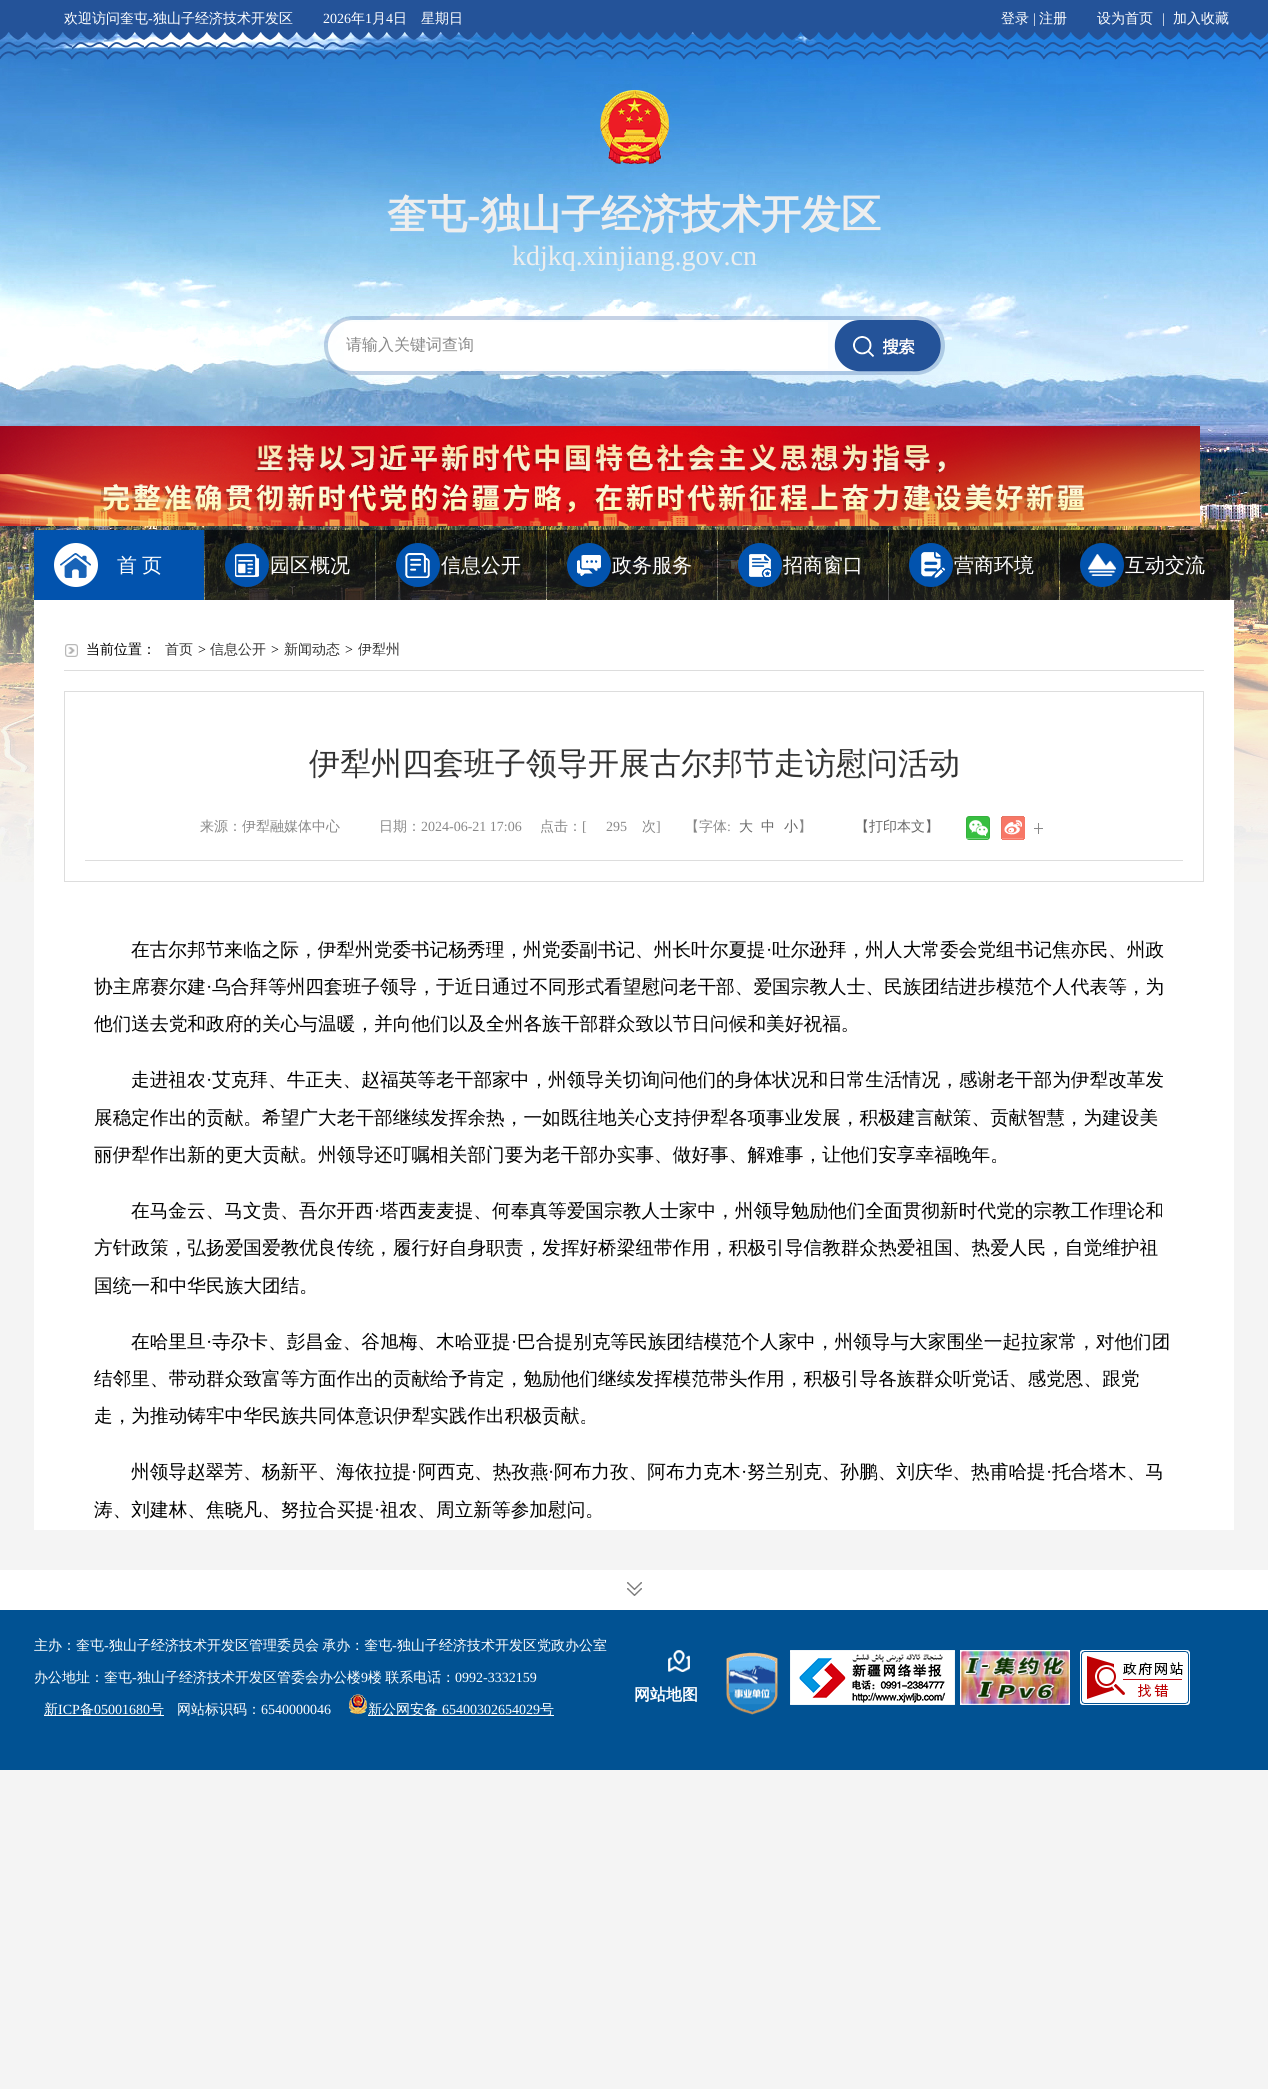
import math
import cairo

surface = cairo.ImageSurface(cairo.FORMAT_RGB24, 1268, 2089)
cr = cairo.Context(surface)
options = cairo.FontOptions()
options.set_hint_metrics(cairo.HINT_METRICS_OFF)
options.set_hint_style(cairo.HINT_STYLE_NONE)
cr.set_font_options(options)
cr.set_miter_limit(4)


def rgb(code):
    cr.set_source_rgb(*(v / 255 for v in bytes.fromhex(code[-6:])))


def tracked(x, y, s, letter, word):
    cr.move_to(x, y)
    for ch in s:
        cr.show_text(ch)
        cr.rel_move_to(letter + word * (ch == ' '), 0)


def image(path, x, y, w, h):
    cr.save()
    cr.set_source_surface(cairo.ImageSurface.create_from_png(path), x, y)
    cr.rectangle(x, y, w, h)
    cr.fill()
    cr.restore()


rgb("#f4f4f4")
cr.paint()
image("img/1.png", 0, 32, 1268, 850)
image("img/2.png", 0, 0, 1268, 60)
image("img/3.png", 600, 90, 69, 74)
image("img/4.png", 324, 316, 621, 59)
rgb("#ffffff")
cr.rectangle(344, 322, 484, 47)
cr.fill()
image("img/5.png", 834, 320, 107, 52)
image("img/6.png", 0, 426, 1200, 100)
rgb("#0253ae")
cr.rectangle(34, 530, 170, 70)
cr.fill()
image("img/7.png", 54, 543, 44, 44)
cr.set_source_rgba(0, 0, 0, 0.7)
cr.rectangle(205, 530, 170, 70)
cr.fill()
image("img/8.png", 225, 543, 44, 44)
cr.rectangle(376, 530, 170, 70)
cr.fill()
image("img/9.png", 396, 543, 44, 44)
cr.rectangle(547, 530, 170, 70)
cr.fill()
image("img/10.png", 567, 543, 44, 44)
cr.rectangle(718, 530, 170, 70)
cr.fill()
image("img/11.png", 738, 543, 44, 44)
cr.rectangle(889, 530, 170, 70)
cr.fill()
image("img/12.png", 909, 543, 44, 44)
cr.rectangle(1060, 530, 170, 70)
cr.fill()
image("img/13.png", 1080, 543, 44, 44)
rgb("#ffffff")
cr.rectangle(34, 600, 1200, 930)
cr.fill()
image("img/14.png", 65, 644, 13, 13)
rgb("#dddddd")
cr.rectangle(64, 670, 1140, 1)
cr.fill()
cr.rectangle(64.5, 691.5, 1139, 190)
cr.set_line_width(1)
cr.stroke()
cr.rectangle(85, 860, 1098, 1)
cr.fill()
image("img/15.png", 966, 816, 24, 24)
image("img/16.png", 1001, 816, 24, 24)
image("img/17.png", 1034, 823, 9, 11)
rgb("#ffffff")
cr.rectangle(0, 1570, 1268, 40)
cr.fill()
image("img/18.png", 627, 1582, 15, 14)
rgb("#015293")
cr.rectangle(0, 1610, 1268, 160)
cr.fill()
rgb("#ffffff")
cr.rectangle(44, 1715, 120, 1)
cr.fill()
image("img/19.png", 349, 1694, 18, 20)
cr.rectangle(368, 1715, 186, 1)
cr.fill()
image("img/20.png", 668, 1650, 22, 22)
image("img/21.png", 726, 1652, 52, 63)
image("img/22.png", 790, 1650, 165, 55)
image("img/23.png", 960, 1650, 110, 55)
image("img/24.png", 1080, 1650, 110, 55)
cr.select_font_face("WenQuanYi Zen Hei Medium")
cr.set_font_size(14)
cr.move_to(64, 23)
cr.show_text("欢迎访问奎屯")
cr.select_font_face("Liberation Serif")
cr.move_to(148, 23)
cr.show_text("-")
cr.select_font_face("WenQuanYi Zen Hei Medium")
cr.move_to(153, 23)
cr.show_text("独山子经济技术开发区")
cr.select_font_face("Liberation Serif")
cr.move_to(323, 23)
cr.show_text("2026")
cr.select_font_face("WenQuanYi Zen Hei Medium")
cr.move_to(351, 23)
cr.show_text("年")
cr.select_font_face("Liberation Serif")
cr.move_to(365, 23)
cr.show_text("1")
cr.select_font_face("WenQuanYi Zen Hei Medium")
cr.move_to(372, 23)
cr.show_text("月")
cr.select_font_face("Liberation Serif")
cr.move_to(386, 23)
cr.show_text("4")
cr.select_font_face("WenQuanYi Zen Hei Medium")
for x, y, s in [
    (393, 23, "日"),
    (421, 23, "星期日"),
    (1001, 23, "登录"),
]:
    cr.move_to(x, y)
    cr.show_text(s)
cr.select_font_face("Liberation Serif")
cr.move_to(1033, 23)
cr.show_text("|")
cr.select_font_face("WenQuanYi Zen Hei Medium")
cr.move_to(1039, 23)
cr.show_text("注册")
cr.move_to(1097, 23)
cr.show_text("设为首页")
cr.select_font_face("Liberation Serif")
cr.move_to(1162, 23)
cr.show_text("|")
cr.select_font_face("WenQuanYi Zen Hei Medium")
cr.move_to(1173, 23)
cr.show_text("加入收藏")
cr.select_font_face("WenQuanYi Zen Hei", cairo.FONT_SLANT_NORMAL, cairo.FONT_WEIGHT_BOLD)
cr.set_font_size(40)
rgb("#eeeeee")
cr.move_to(387, 228)
cr.show_text("奎屯")
cr.select_font_face("Liberation Serif", cairo.FONT_SLANT_NORMAL, cairo.FONT_WEIGHT_BOLD)
cr.move_to(467, 228)
cr.show_text("-")
cr.select_font_face("WenQuanYi Zen Hei", cairo.FONT_SLANT_NORMAL, cairo.FONT_WEIGHT_BOLD)
cr.move_to(481, 228)
cr.show_text("独山子经济技术开发区")
cr.select_font_face("Liberation Serif")
cr.set_font_size(28)
cr.move_to(512, 265)
cr.show_text("kdjkq.xinjiang.gov.cn")
cr.select_font_face("WenQuanYi Zen Hei Medium")
cr.set_font_size(16)
rgb("#888888")
cr.move_to(346, 350)
cr.show_text("请输入关键词查询")
cr.set_font_size(20)
rgb("#ffffff")
tracked(117, 572, "首 页", 0, -1)
for x, y, s in [
    (270, 572, "园区概况"),
    (441, 572, "信息公开"),
    (612, 572, "政务服务"),
    (783, 572, "招商窗口"),
    (954, 572, "营商环境"),
    (1125, 572, "互动交流"),
]:
    cr.move_to(x, y)
    cr.show_text(s)
cr.set_font_size(14)
rgb("#000000")
cr.move_to(86, 654)
cr.show_text("当前位置：")
rgb("#333333")
cr.move_to(165, 654)
cr.show_text("首页")
cr.select_font_face("Liberation Serif")
rgb("#000000")
cr.move_to(198, 654)
cr.show_text(">")
cr.select_font_face("WenQuanYi Zen Hei Medium")
rgb("#333333")
cr.move_to(210, 654)
cr.show_text("信息公开")
cr.select_font_face("Liberation Serif")
rgb("#000000")
cr.move_to(271, 654)
cr.show_text(">")
cr.select_font_face("WenQuanYi Zen Hei Medium")
rgb("#333333")
cr.move_to(284, 654)
cr.show_text("新闻动态")
cr.select_font_face("Liberation Serif")
rgb("#000000")
cr.move_to(345, 654)
cr.show_text(">")
cr.select_font_face("WenQuanYi Zen Hei Medium")
rgb("#333333")
cr.move_to(358, 654)
cr.show_text("伊犁州")
cr.set_font_size(31)
cr.move_to(309, 774)
cr.show_text("伊犁州四套班子领导开展古尔邦节走访慰问活动")
cr.set_font_size(14)
rgb("#888888")
cr.move_to(200, 831)
cr.show_text("来源：伊犁融媒体中心")
cr.move_to(379, 831)
cr.show_text("日期：")
cr.select_font_face("Liberation Serif")
cr.move_to(421, 831)
cr.show_text("2024-06-21 17:06")
cr.select_font_face("WenQuanYi Zen Hei Medium")
cr.move_to(540, 831)
cr.show_text("点击：")
cr.select_font_face("Liberation Serif")
cr.move_to(582, 831)
cr.show_text("[")
cr.move_to(606, 831)
cr.show_text("295")
cr.select_font_face("WenQuanYi Zen Hei Medium")
cr.move_to(642, 831)
cr.show_text("次")
cr.select_font_face("Liberation Serif")
cr.move_to(656, 831)
cr.show_text("]")
cr.select_font_face("WenQuanYi Zen Hei Medium")
cr.move_to(685, 831)
cr.show_text("【字体")
cr.select_font_face("Liberation Serif")
cr.move_to(727, 831)
cr.show_text(":")
cr.select_font_face("WenQuanYi Zen Hei Medium")
rgb("#666666")
for x, y, s in [
    (739, 831, "大"),
    (761, 831, "中"),
    (784, 831, "小"),
]:
    cr.move_to(x, y)
    cr.show_text(s)
rgb("#888888")
cr.move_to(798, 831)
cr.show_text("】")
rgb("#666666")
cr.move_to(855, 831)
cr.show_text("【打印本文】")
cr.set_font_size(18.67)
rgb("#000000")
cr.move_to(131, 956)
cr.show_text("在古尔邦节来临之际，伊犁州党委书记杨秀理，州党委副书记、州长叶尔夏提")
cr.select_font_face("Liberation Serif")
cr.move_to(766, 956)
cr.show_text("·")
cr.select_font_face("WenQuanYi Zen Hei Medium")
cr.move_to(772, 956)
cr.show_text("吐尔逊拜，州人大常委会党组书记焦亦民、州政")
cr.move_to(94, 993)
cr.show_text("协主席赛尔建")
cr.select_font_face("Liberation Serif")
cr.move_to(206, 993)
cr.show_text("·")
cr.select_font_face("WenQuanYi Zen Hei Medium")
for x, y, s in [
    (212, 993, "乌合拜等州四套班子领导，于近日通过不同形式看望慰问老干部、爱国宗教人士、民族团结进步模范个人代表等，为"),
    (94, 1030, "他们送去党和政府的关心与温暖，并向他们以及全州各族干部群众致以节日问候和美好祝福。"),
    (131, 1086, "走进祖农"),
]:
    cr.move_to(x, y)
    cr.show_text(s)
cr.select_font_face("Liberation Serif")
cr.move_to(206, 1086)
cr.show_text("·")
cr.select_font_face("WenQuanYi Zen Hei Medium")
for x, y, s in [
    (212, 1086, "艾克拜、牛正夫、赵福英等老干部家中，州领导关切询问他们的身体状况和日常生活情况，感谢老干部为伊犁改革发"),
    (94, 1124, "展稳定作出的贡献。希望广大老干部继续发挥余热，一如既往地关心支持伊犁各项事业发展，积极建言献策、贡献智慧，为建设美"),
    (94, 1161, "丽伊犁作出新的更大贡献。州领导还叮嘱相关部门要为老干部办实事、做好事、解难事，让他们安享幸福晚年。"),
    (131, 1217, "在马金云、马文贵、吾尔开西"),
]:
    cr.move_to(x, y)
    cr.show_text(s)
cr.select_font_face("Liberation Serif")
cr.move_to(374, 1217)
cr.show_text("·")
cr.select_font_face("WenQuanYi Zen Hei Medium")
for x, y, s in [
    (380, 1217, "塔西麦麦提、何奉真等爱国宗教人士家中，州领导勉励他们全面贯彻新时代党的宗教工作理论和"),
    (94, 1254, "方针政策，弘扬爱国爱教优良传统，履行好自身职责，发挥好桥梁纽带作用，积极引导信教群众热爱祖国、热爱人民，自觉维护祖"),
    (94, 1292, "国统一和中华民族大团结。"),
    (131, 1348, "在哈里旦"),
]:
    cr.move_to(x, y)
    cr.show_text(s)
cr.select_font_face("Liberation Serif")
cr.move_to(206, 1348)
cr.show_text("·")
cr.select_font_face("WenQuanYi Zen Hei Medium")
cr.move_to(212, 1348)
cr.show_text("寺尕卡、彭昌金、谷旭梅、木哈亚提")
cr.select_font_face("Liberation Serif")
cr.move_to(511, 1348)
cr.show_text("·")
cr.select_font_face("WenQuanYi Zen Hei Medium")
for x, y, s in [
    (517, 1348, "巴合提别克等民族团结模范个人家中，州领导与大家围坐一起拉家常，对他们团"),
    (94, 1385, "结邻里、带动群众致富等方面作出的贡献给予肯定，勉励他们继续发挥模范带头作用，积极引导各族群众听党话、感党恩、跟党"),
    (94, 1422, "走，为推动铸牢中华民族共同体意识伊犁实践作出积极贡献。"),
    (131, 1478, "州领导赵翠芳、杨新平、海依拉提"),
]:
    cr.move_to(x, y)
    cr.show_text(s)
cr.select_font_face("Liberation Serif")
cr.move_to(411, 1478)
cr.show_text("·")
cr.select_font_face("WenQuanYi Zen Hei Medium")
cr.move_to(418, 1478)
cr.show_text("阿西克、热孜燕")
cr.select_font_face("Liberation Serif")
cr.move_to(548, 1478)
cr.show_text("·")
cr.select_font_face("WenQuanYi Zen Hei Medium")
cr.move_to(554, 1478)
cr.show_text("阿布力孜、阿布力克木")
cr.select_font_face("Liberation Serif")
cr.move_to(741, 1478)
cr.show_text("·")
cr.select_font_face("WenQuanYi Zen Hei Medium")
cr.move_to(747, 1478)
cr.show_text("努兰别克、孙鹏、刘庆华、热甫哈提")
cr.select_font_face("Liberation Serif")
cr.move_to(1046, 1478)
cr.show_text("·")
cr.select_font_face("WenQuanYi Zen Hei Medium")
cr.move_to(1052, 1478)
cr.show_text("托合塔木、马")
cr.move_to(94, 1516)
cr.show_text("涛、刘建林、焦晓凡、努拉合买提")
cr.select_font_face("Liberation Serif")
cr.move_to(374, 1516)
cr.show_text("·")
cr.select_font_face("WenQuanYi Zen Hei Medium")
cr.move_to(380, 1516)
cr.show_text("祖农、周立新等参加慰问。")
cr.set_font_size(14)
rgb("#ffffff")
cr.move_to(34, 1650)
cr.show_text("主办：奎屯")
cr.select_font_face("Liberation Serif")
cr.move_to(104, 1650)
cr.show_text("-")
cr.select_font_face("WenQuanYi Zen Hei Medium")
tracked(109, 1650, "独山子经济技术开发区管理委员会 承办：奎屯", 0, -1)
cr.select_font_face("Liberation Serif")
cr.move_to(392, 1650)
cr.show_text("-")
cr.select_font_face("WenQuanYi Zen Hei Medium")
cr.move_to(397, 1650)
cr.show_text("独山子经济技术开发区党政办公室")
cr.move_to(34, 1682)
cr.show_text("办公地址：奎屯")
cr.select_font_face("Liberation Serif")
cr.move_to(132, 1682)
cr.show_text("-")
cr.select_font_face("WenQuanYi Zen Hei Medium")
cr.move_to(137, 1682)
cr.show_text("独山子经济技术开发区管委会办公楼")
cr.select_font_face("Liberation Serif")
cr.move_to(361, 1682)
cr.show_text("9")
cr.select_font_face("WenQuanYi Zen Hei Medium")
tracked(368, 1682, "楼 联系电话：", 0, -1)
cr.select_font_face("Liberation Serif")
cr.move_to(455, 1682)
cr.show_text("0992-3332159")
cr.select_font_face("WenQuanYi Zen Hei Medium")
cr.move_to(44, 1714)
cr.show_text("新")
cr.select_font_face("Liberation Serif")
cr.move_to(58, 1714)
cr.show_text("ICP")
cr.select_font_face("WenQuanYi Zen Hei Medium")
cr.move_to(80, 1714)
cr.show_text("备")
cr.select_font_face("Liberation Serif")
cr.move_to(94, 1714)
cr.show_text("05001680")
cr.select_font_face("WenQuanYi Zen Hei Medium")
cr.move_to(150, 1714)
cr.show_text("号")
cr.move_to(177, 1714)
cr.show_text("网站标识码：")
cr.select_font_face("Liberation Serif")
cr.move_to(261, 1714)
cr.show_text("6540000046")
cr.select_font_face("WenQuanYi Zen Hei Medium")
cr.move_to(368, 1714)
cr.show_text("新公网安备")
cr.select_font_face("Liberation Serif")
cr.move_to(442, 1714)
cr.show_text("65400302654029")
cr.select_font_face("WenQuanYi Zen Hei Medium")
cr.move_to(540, 1714)
cr.show_text("号")
cr.select_font_face("WenQuanYi Zen Hei", cairo.FONT_SLANT_NORMAL, cairo.FONT_WEIGHT_BOLD)
cr.set_font_size(16)
cr.move_to(634, 1700)
cr.show_text("网站地图")
surface.write_to_png("page.png")
